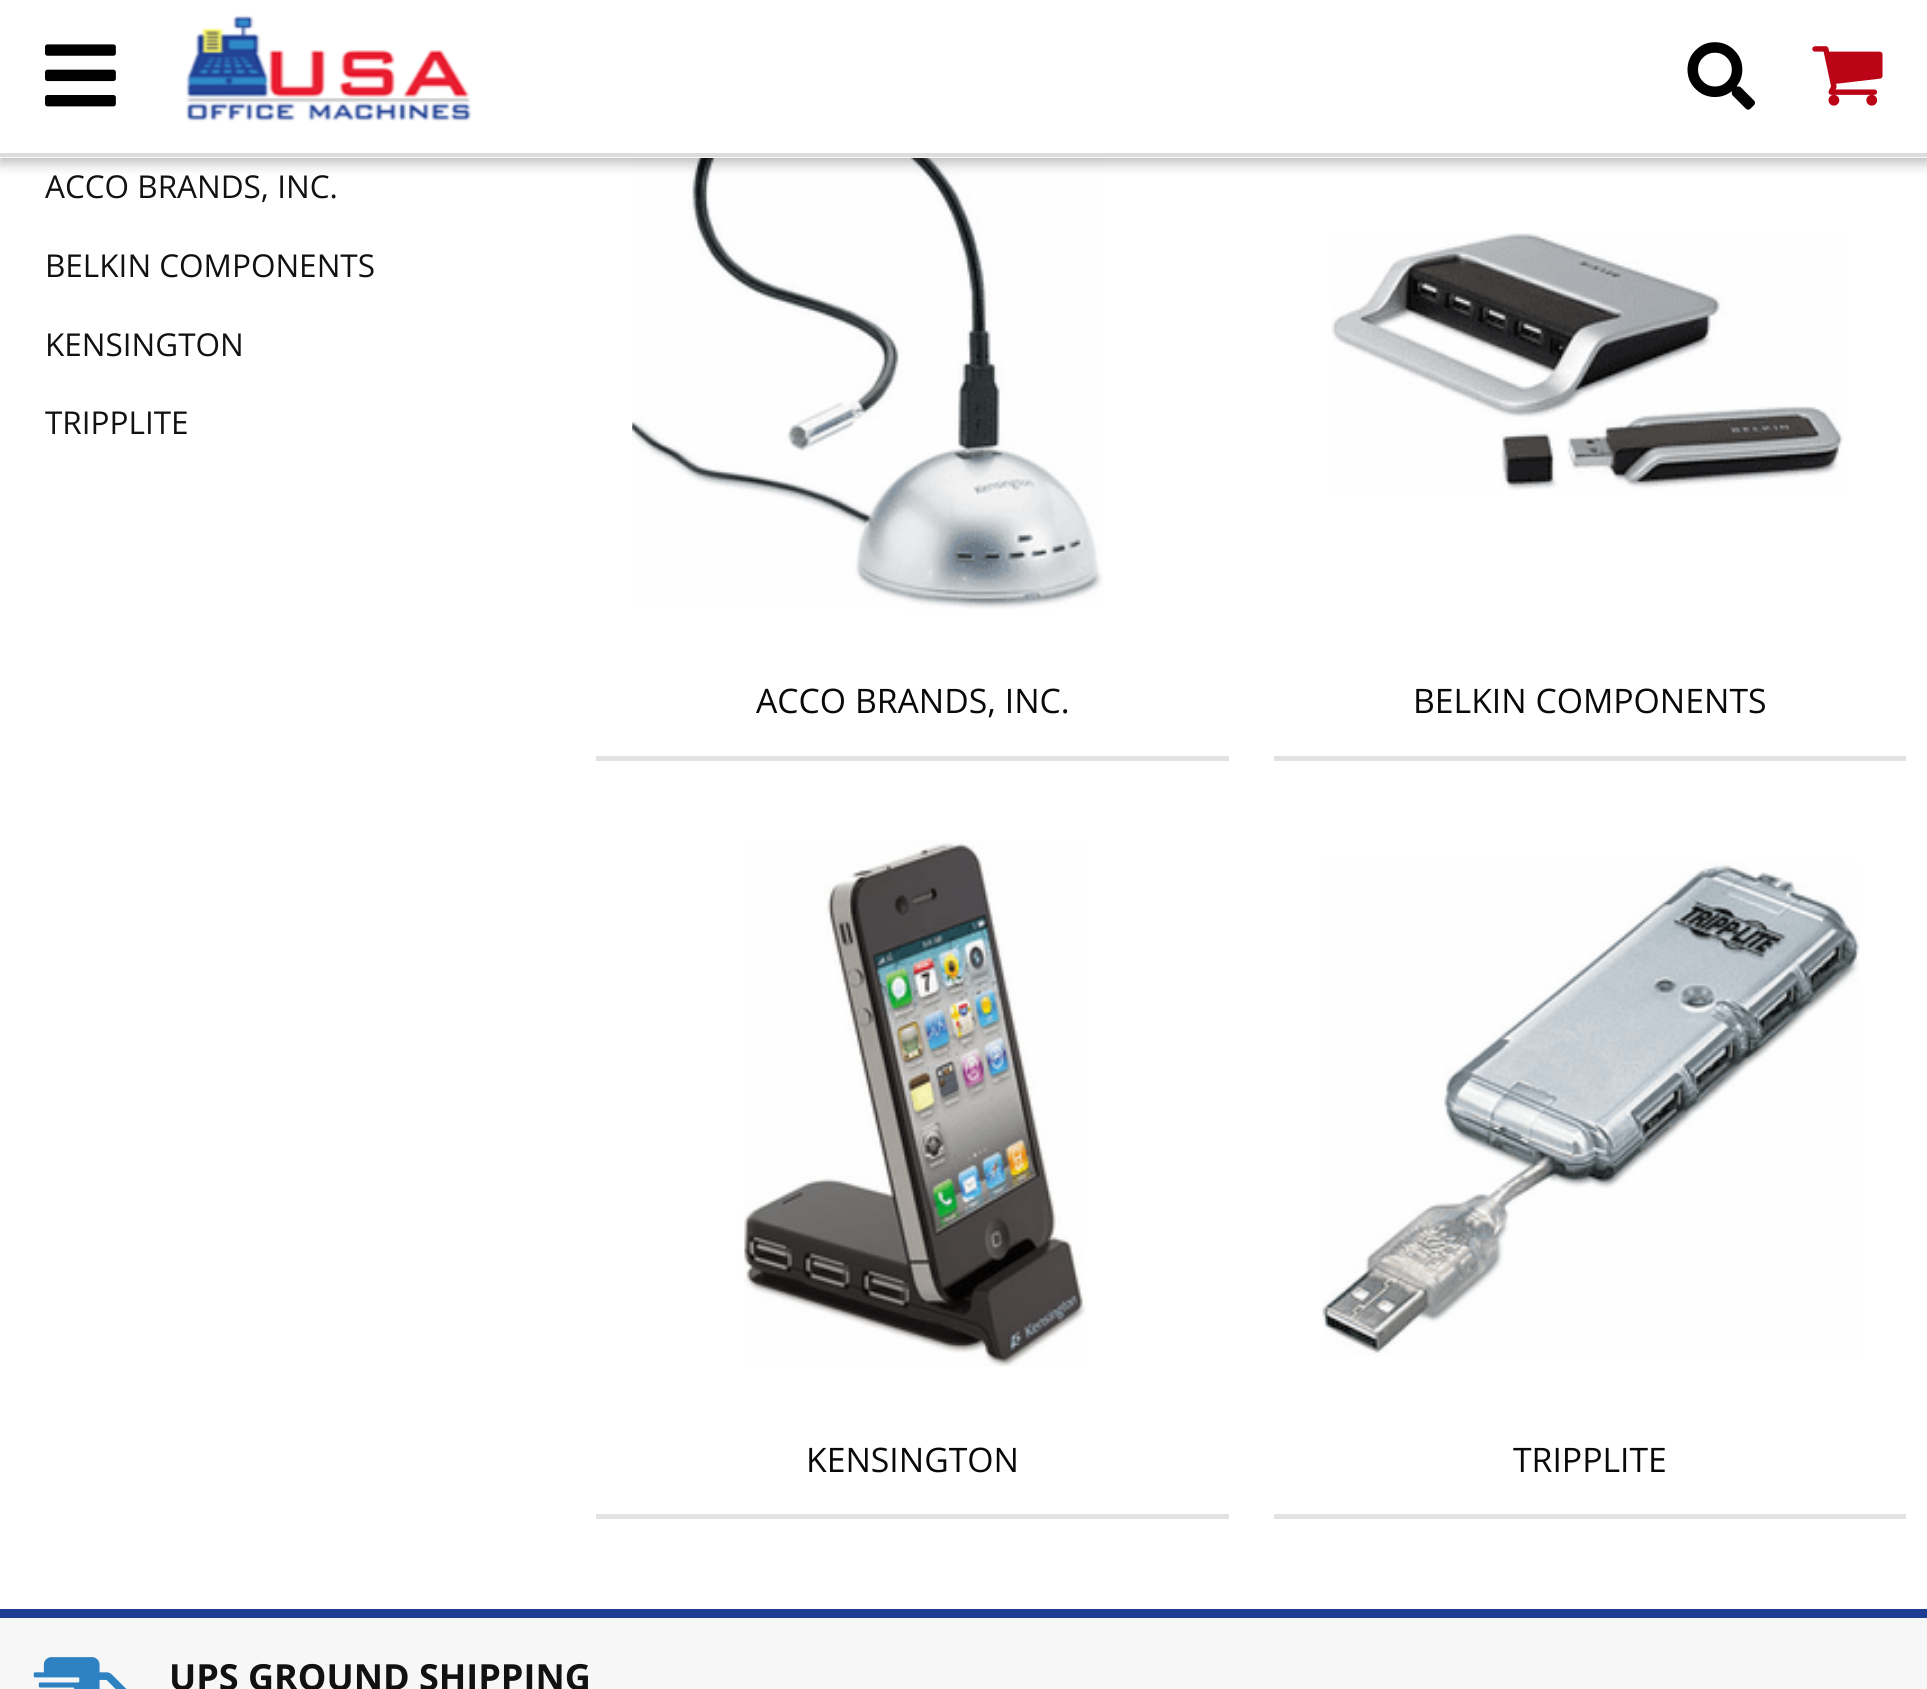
import math
import cairo

surface = cairo.ImageSurface(cairo.FORMAT_RGB24, 1927, 1689)
cr = cairo.Context(surface)
options = cairo.FontOptions()
options.set_hint_metrics(cairo.HINT_METRICS_OFF)
options.set_hint_style(cairo.HINT_STYLE_NONE)
cr.set_font_options(options)
cr.set_miter_limit(4)


def rgb(code):
    cr.set_source_rgb(*(v / 255 for v in bytes.fromhex(code[-6:])))


def rrect(x, y, w, h, r):
    cr.new_sub_path()
    for i, (u, v) in enumerate([(x + w - r, y + h - r), (x + r, y + h - r), (x + r, y + r), (x + w - r, y + r)]):
        cr.arc(u, v, r, i * math.pi / 2, (i + 1) * math.pi / 2)
    cr.close_path()


def soft_shadow(x, y, w, h, r, blur, alpha):
    cr.push_group_with_content(cairo.CONTENT_ALPHA)
    cr.set_operator(cairo.OPERATOR_SOURCE)
    for i in range(15, -16, -2):
        e = blur * i / 6
        if min(w, h) + 2 * e > 0:
            cr.set_source_rgba(0, 0, 0, alpha * math.erfc((i - 1) / 8.5) / 2)
            rrect(x - e, y - e, w + 2 * e, h + 2 * e, max(0, min(r + e + blur * .6, min(w, h) / 2 + e)))
            cr.fill()
    cr.mask(cr.pop_group())


def image(path, x, y, w, h):
    cr.save()
    cr.set_source_surface(cairo.ImageSurface.create_from_png(path), x, y)
    cr.rectangle(x, y, w, h)
    cr.fill()
    cr.restore()


rgb("#ffffff")
cr.paint()
image("img/5.png", 632, 158, 471, 451)
rgb("#000000")
soft_shadow(0, 2, 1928, 160, 0, 7, 0.3)
rgb("#ffffff")
cr.rectangle(0, 0, 1927, 153)
cr.fill()
image("img/1.png", 45, 44, 71, 63)
image("img/2.png", 186, 15, 286, 107)
image("img/3.png", 1687, 42, 68, 68)
image("img/4.png", 1812, 46, 71, 60)
for x, y, w, h, color in [
    (0, 157, 1927, 1, "#f7f7f7"),
    (0, 153, 1927, 4, "#dddddd"),
    (596, 756, 633, 5, "#e2e2e2"),
    (1274, 756, 632, 5, "#e2e2e2"),
]:
    rgb(color)
    cr.rectangle(x, y, w, h)
    cr.fill()
image("img/6.png", 1331, 233, 513, 258)
cr.rectangle(596, 1514, 633, 5)
cr.fill()
image("img/7.png", 743, 840, 344, 527)
cr.rectangle(1274, 1514, 632, 5)
cr.fill()
image("img/8.png", 1322, 862, 538, 494)
rgb("#f7f7f7")
cr.rectangle(0, 1618, 1927, 71)
cr.fill()
rgb("#1c3d92")
cr.rectangle(0, 1609, 1927, 9)
cr.fill()
image("img/9.png", 33, 1657, 94, 32)
cr.select_font_face("Open Sans")
cr.set_font_size(31.5)
rgb("#111111")
for x, y, s in [
    (45, 198, "ACCO BRANDS, INC."),
    (45, 277, "BELKIN COMPONENTS"),
    (45, 356, "KENSINGTON"),
    (45, 434, "TRIPPLITE"),
]:
    cr.move_to(x, y)
    cr.show_text(s)
cr.set_font_size(33.75)
rgb("#090909")
for x, y, s in [
    (756, 713, "ACCO BRANDS, INC."),
    (1413, 713, "BELKIN COMPONENTS"),
    (806, 1472, "KENSINGTON"),
    (1513, 1472, "TRIPPLITE"),
]:
    cr.move_to(x, y)
    cr.show_text(s)
cr.select_font_face("Open Sans", cairo.FONT_SLANT_NORMAL, cairo.FONT_WEIGHT_BOLD)
cr.set_font_size(36)
rgb("#111111")
cr.move_to(169, 1690)
cr.show_text("UPS GROUND SHIPPING")
surface.write_to_png("page.png")
